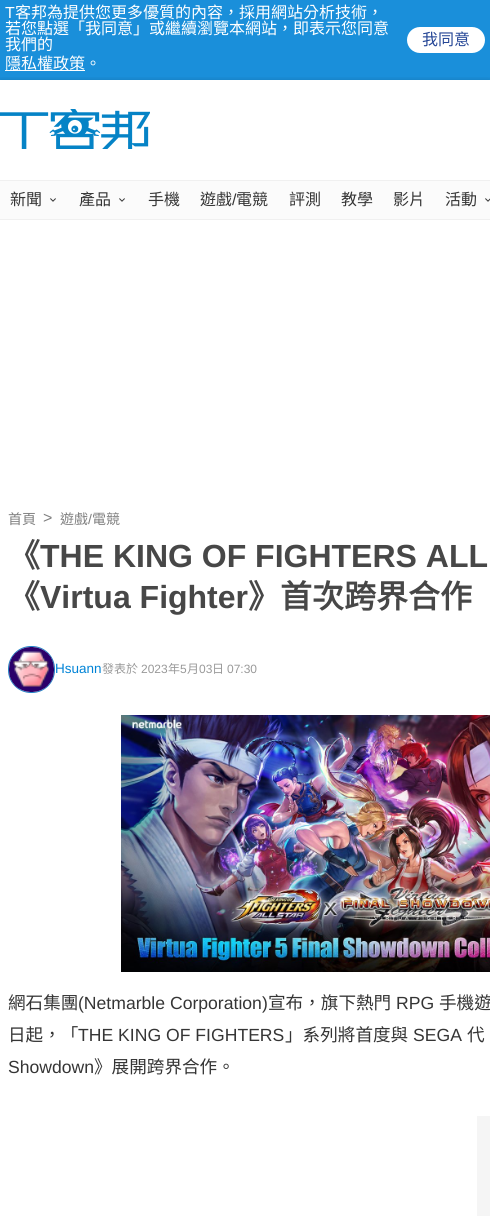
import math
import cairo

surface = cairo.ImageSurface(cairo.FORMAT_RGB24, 490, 1216)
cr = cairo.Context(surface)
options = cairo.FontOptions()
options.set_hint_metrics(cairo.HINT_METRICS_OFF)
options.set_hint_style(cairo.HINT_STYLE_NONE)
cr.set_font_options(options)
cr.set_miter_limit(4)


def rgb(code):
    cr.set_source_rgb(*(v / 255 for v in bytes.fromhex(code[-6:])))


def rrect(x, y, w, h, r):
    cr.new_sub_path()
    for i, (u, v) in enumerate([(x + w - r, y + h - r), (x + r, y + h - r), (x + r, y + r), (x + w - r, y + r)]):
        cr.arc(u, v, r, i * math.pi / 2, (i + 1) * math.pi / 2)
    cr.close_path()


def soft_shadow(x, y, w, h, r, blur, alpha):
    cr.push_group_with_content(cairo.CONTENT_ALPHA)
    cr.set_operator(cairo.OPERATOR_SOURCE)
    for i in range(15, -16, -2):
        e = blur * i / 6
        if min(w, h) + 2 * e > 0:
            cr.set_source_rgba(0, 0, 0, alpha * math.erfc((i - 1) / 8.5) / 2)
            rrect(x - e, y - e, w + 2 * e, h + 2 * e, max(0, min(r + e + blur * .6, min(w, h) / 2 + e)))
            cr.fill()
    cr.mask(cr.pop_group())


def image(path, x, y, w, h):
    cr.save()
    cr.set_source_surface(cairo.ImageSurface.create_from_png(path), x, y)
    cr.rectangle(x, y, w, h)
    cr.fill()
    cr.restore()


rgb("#ffffff")
cr.paint()
rgb("#1a8fda")
cr.rectangle(0, 0, 490, 80)
cr.fill()
rgb("#ffffff")
cr.rectangle(5, 70, 80, 1)
cr.fill()
rrect(407, 27, 78, 26, 13)
cr.fill()
cr.save()
cr.rectangle(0, 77, 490, 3)
cr.clip()
rgb("#000000")
soft_shadow(0, 80, 490, 100, 0, 2.5, 0.15)
cr.restore()
image("img/1.png", 0, 109, 150, 40)
for x, y, w, h, color in [
    (0, 181, 490, 38, "#fbfbfb"),
    (0, 180, 490, 1, "#f0f0f0"),
    (0, 219, 490, 1, "#f0f0f0"),
]:
    rgb(color)
    cr.rectangle(x, y, w, h)
    cr.fill()
image("img/2.png", 50, 198, 6, 4)
image("img/2.png", 119, 198, 6, 4)
image("img/3.png", 485, 198, 5, 4)
rrect(8.5, 646.5, 46, 46, 22.5)
rgb("#2382c5")
cr.set_line_width(1)
cr.stroke()
image("img/4.png", 9, 647, 45, 45)
image("img/5.png", 121, 715, 369, 257)
rgb("#f5f5f5")
cr.rectangle(477, 1116, 13, 100)
cr.fill()
cr.select_font_face("Liberation Sans")
cr.set_font_size(16)
rgb("#ffffff")
cr.move_to(5, 18)
cr.show_text("T")
cr.select_font_face("Noto Sans CJK TC")
for x, y, s in [
    (15, 18, "客邦為提供您更多優質的內容，採用網站分析技術，"),
    (5, 34, "若您點選「我同意」或繼續瀏覽本網站，即表示您同意"),
    (5, 50, "我們的"),
    (5, 69, "隱私權政策。"),
]:
    cr.move_to(x, y)
    cr.show_text(s)
rgb("#254696")
cr.move_to(422, 45)
cr.show_text("我同意")
rgb("#353535")
for x, y, s in [
    (10, 205, "新聞"),
    (79, 205, "產品"),
    (148, 205, "手機"),
    (200, 205, "遊戲"),
]:
    cr.move_to(x, y)
    cr.show_text(s)
cr.select_font_face("Liberation Sans")
cr.move_to(232, 205)
cr.show_text("/")
cr.select_font_face("Noto Sans CJK TC")
for x, y, s in [
    (236, 205, "電競"),
    (289, 205, "評測"),
    (341, 205, "教學"),
    (393, 205, "影片"),
    (445, 205, "活動"),
]:
    cr.move_to(x, y)
    cr.show_text(s)
cr.set_font_size(14)
rgb("#808080")
cr.move_to(8, 524)
cr.show_text("首頁")
cr.select_font_face("Liberation Sans")
cr.set_font_size(16)
cr.move_to(43, 523)
cr.show_text(">")
cr.select_font_face("Noto Sans CJK TC")
cr.set_font_size(14)
cr.move_to(60, 524)
cr.show_text("遊戲")
cr.select_font_face("Liberation Sans")
cr.move_to(88, 524)
cr.show_text("/")
cr.select_font_face("Noto Sans CJK TC")
cr.move_to(92, 524)
cr.show_text("電競")
cr.select_font_face("Noto Sans CJK TC", cairo.FONT_SLANT_NORMAL, cairo.FONT_WEIGHT_BOLD)
cr.set_font_size(32)
rgb("#474747")
cr.move_to(8, 567)
cr.show_text("《")
cr.select_font_face("Liberation Sans", cairo.FONT_SLANT_NORMAL, cairo.FONT_WEIGHT_BOLD)
cr.move_to(40, 567)
cr.show_text("THE KING OF FIGHTERS ALL")
cr.select_font_face("Noto Sans CJK TC", cairo.FONT_SLANT_NORMAL, cairo.FONT_WEIGHT_BOLD)
cr.move_to(8, 608)
cr.show_text("《")
cr.select_font_face("Liberation Sans", cairo.FONT_SLANT_NORMAL, cairo.FONT_WEIGHT_BOLD)
cr.move_to(40, 608)
cr.show_text("Virtua Fighter")
cr.select_font_face("Noto Sans CJK TC", cairo.FONT_SLANT_NORMAL, cairo.FONT_WEIGHT_BOLD)
cr.move_to(248, 608)
cr.show_text("》首次跨界合作")
cr.select_font_face("Liberation Sans")
cr.set_font_size(13.5)
rgb("#0083d6")
cr.move_to(55, 673)
cr.show_text("Hsuann")
cr.select_font_face("Noto Sans CJK TC")
cr.set_font_size(12)
rgb("#999999")
cr.move_to(102, 673)
cr.show_text("發表於")
cr.select_font_face("Liberation Sans")
cr.move_to(141, 673)
cr.show_text("2023")
cr.select_font_face("Noto Sans CJK TC")
cr.move_to(168, 673)
cr.show_text("年")
cr.select_font_face("Liberation Sans")
cr.move_to(180, 673)
cr.show_text("5")
cr.select_font_face("Noto Sans CJK TC")
cr.move_to(187, 673)
cr.show_text("月")
cr.select_font_face("Liberation Sans")
cr.move_to(199, 673)
cr.show_text("03")
cr.select_font_face("Noto Sans CJK TC")
cr.move_to(212, 673)
cr.show_text("日")
cr.select_font_face("Liberation Sans")
cr.move_to(227, 673)
cr.show_text("07:30")
cr.select_font_face("Noto Sans CJK TC")
cr.set_font_size(17.6)
rgb("#353535")
cr.move_to(8, 1009)
cr.show_text("網石集團")
cr.select_font_face("Liberation Sans")
cr.move_to(78, 1009)
cr.show_text("(Netmarble Corporation)")
cr.select_font_face("Noto Sans CJK TC")
cr.move_to(268, 1009)
cr.show_text("宣布，旗下熱門")
cr.select_font_face("Liberation Sans")
cr.move_to(396, 1009)
cr.show_text("RPG")
cr.select_font_face("Noto Sans CJK TC")
cr.move_to(439, 1009)
cr.show_text("手機遊")
cr.move_to(8, 1041)
cr.show_text("日起，「")
cr.select_font_face("Liberation Sans")
cr.move_to(78, 1041)
cr.show_text("THE KING OF FIGHTERS")
cr.select_font_face("Noto Sans CJK TC")
cr.move_to(285, 1041)
cr.show_text("」系列將首度與")
cr.select_font_face("Liberation Sans")
cr.move_to(413, 1041)
cr.show_text("SEGA")
cr.select_font_face("Noto Sans CJK TC")
cr.move_to(467, 1041)
cr.show_text("代")
cr.select_font_face("Liberation Sans")
cr.move_to(8, 1073)
cr.show_text("Showdown")
cr.select_font_face("Noto Sans CJK TC")
cr.move_to(94, 1073)
cr.show_text("》展開跨界合作。")
surface.write_to_png("page.png")
